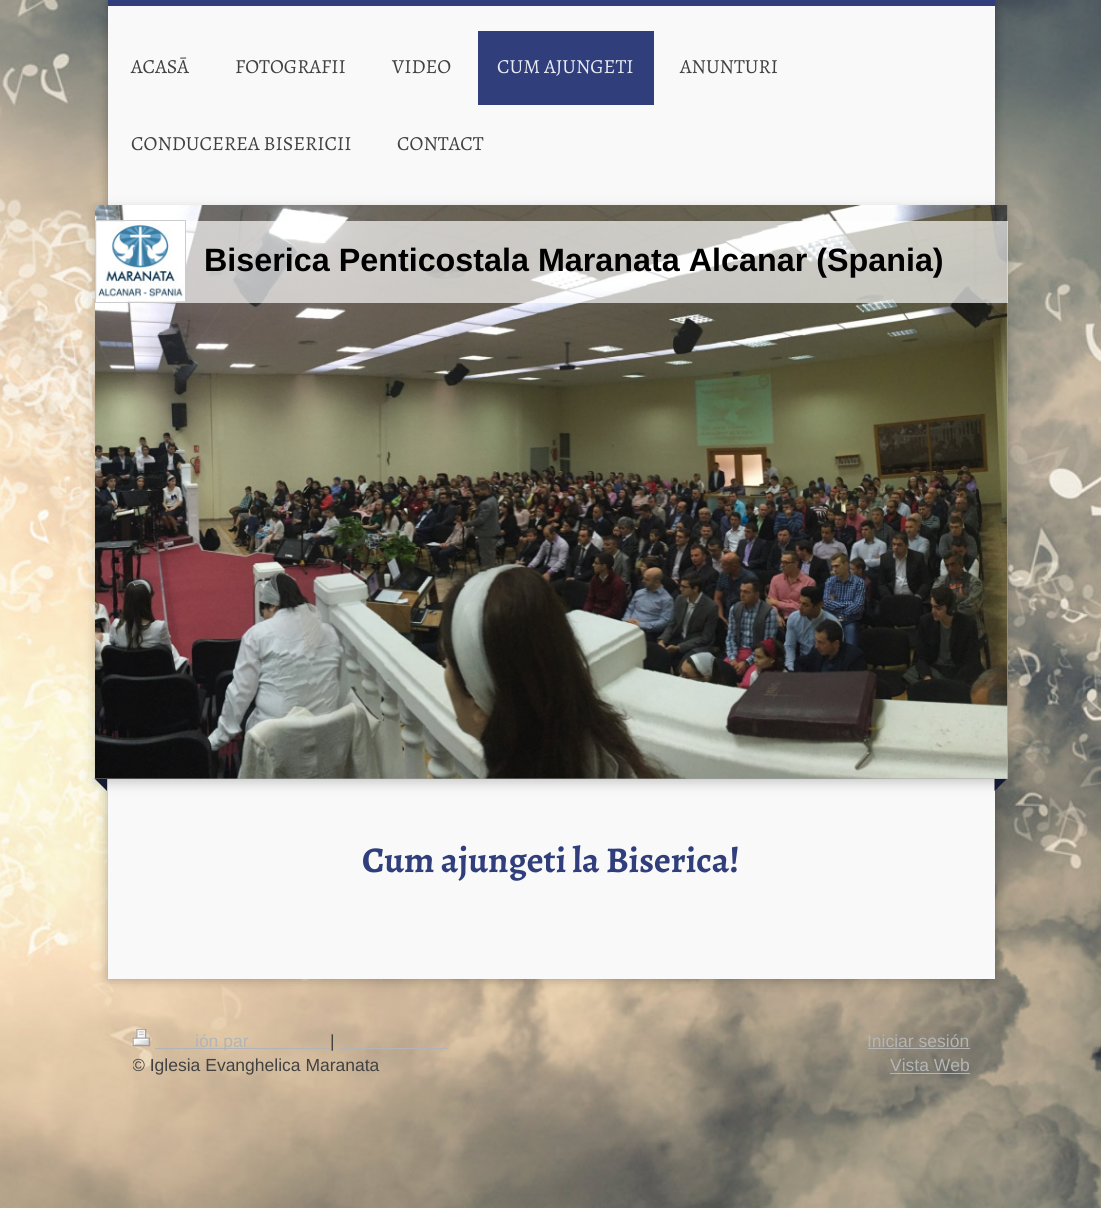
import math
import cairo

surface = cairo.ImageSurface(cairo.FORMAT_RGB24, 1101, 1208)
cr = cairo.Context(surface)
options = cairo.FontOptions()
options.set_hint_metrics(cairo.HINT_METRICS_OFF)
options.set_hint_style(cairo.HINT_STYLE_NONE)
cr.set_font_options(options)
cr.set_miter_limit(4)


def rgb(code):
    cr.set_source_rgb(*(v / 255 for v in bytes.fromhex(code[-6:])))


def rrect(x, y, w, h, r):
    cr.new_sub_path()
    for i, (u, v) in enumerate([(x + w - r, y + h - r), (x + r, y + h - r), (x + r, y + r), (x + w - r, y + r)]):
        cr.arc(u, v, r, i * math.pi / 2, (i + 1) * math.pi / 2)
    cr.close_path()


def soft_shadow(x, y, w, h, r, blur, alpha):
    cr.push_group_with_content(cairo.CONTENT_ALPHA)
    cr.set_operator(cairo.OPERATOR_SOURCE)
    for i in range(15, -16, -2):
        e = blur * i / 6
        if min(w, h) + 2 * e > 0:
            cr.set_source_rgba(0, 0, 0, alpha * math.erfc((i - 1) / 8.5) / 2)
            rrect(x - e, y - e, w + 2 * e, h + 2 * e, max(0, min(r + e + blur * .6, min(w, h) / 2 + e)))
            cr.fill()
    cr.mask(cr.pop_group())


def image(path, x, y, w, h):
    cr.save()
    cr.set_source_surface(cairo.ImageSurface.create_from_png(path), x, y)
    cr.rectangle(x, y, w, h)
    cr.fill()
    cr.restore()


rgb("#ffffff")
cr.paint()
image("img/1.png", 0, 0, 1101, 1208)
rgb("#000000")
soft_shadow(108, 0, 887, 979, 0, 6, 0.3)
for x, y, w, h, color in [
    (108, 6, 887, 973, "#f9f9f9"),
    (108, 0, 887, 6, "#303f7c"),
    (478, 31, 176, 74, "#303f7c"),
]:
    rgb(color)
    cr.rectangle(x, y, w, h)
    cr.fill()
rgb("#000000")
soft_shadow(95, 209, 913, 574, 0, 6, 0.2)
rgb("#141a32")
cr.new_path()
cr.move_to(107, 766)
cr.line_to(107, 791)
cr.line_to(94.5, 778.5)
cr.close_path()
cr.fill()
cr.new_path()
cr.move_to(994.5, 791)
cr.line_to(994.5, 766)
cr.line_to(1007, 778.5)
cr.close_path()
cr.fill()
rgb("#a0a0a0")
cr.rectangle(95, 205, 913, 574)
cr.fill()
image("img/2.png", 95, 205, 913, 574)
cr.set_source_rgba(1, 1, 1, 0.67)
cr.rectangle(96, 221, 912, 82)
cr.fill()
cr.rectangle(95.5, 220.5, 90, 82)
rgb("#cccccc")
cr.set_line_width(1)
cr.stroke()
image("img/3.png", 96, 221, 89, 81)
image("img/4.png", 132, 1029, 19, 18)
for x, y, w, h, color in [
    (155, 1048, 175, 1, "#b4b4b4"),
    (340, 1048, 108, 1, "#b4b4b4"),
    (868, 1048, 102, 1, "#b4b4b4"),
    (890, 1073, 80, 1, "#b4b4b4"),
]:
    rgb(color)
    cr.rectangle(x, y, w, h)
    cr.fill()
cr.select_font_face("Alegreya")
cr.set_font_size(20)
rgb("#414141")
for x, y, s in [
    (131, 73, "ACASĀ"),
    (235, 73, "FOTOGRAFII"),
    (392, 73, "VIDEO"),
]:
    cr.move_to(x, y)
    cr.show_text(s)
rgb("#eaecf2")
cr.move_to(497, 73)
cr.show_text("CUM AJUNGETI")
rgb("#414141")
for x, y, s in [
    (680, 73, "ANUNTURI"),
    (131, 150, "CONDUCEREA BISERICII"),
    (397, 150, "CONTACT"),
]:
    cr.move_to(x, y)
    cr.show_text(s)
cr.select_font_face("Liberation Sans", cairo.FONT_SLANT_NORMAL, cairo.FONT_WEIGHT_BOLD)
cr.set_font_size(32.3)
rgb("#000000")
cr.move_to(204, 271)
cr.show_text("Biserica Penticostala Maranata Alcanar (Spania)")
cr.select_font_face("Alegreya", cairo.FONT_SLANT_NORMAL, cairo.FONT_WEIGHT_BOLD)
cr.set_font_size(36.25)
rgb("#303f7c")
cr.move_to(362, 872)
cr.show_text("Cum ajungeti la Biserica!")
cr.select_font_face("Liberation Sans")
cr.set_font_size(17.5)
rgb("#b4b4b4")
cr.move_to(195, 1047)
cr.show_text("ión par")
rgb("#414141")
cr.move_to(330, 1047)
cr.show_text("|")
cr.save()
cr.rectangle(133, 1029, 837, 49)
cr.clip()
cr.move_to(132, 1071)
cr.show_text("© Iglesia Evanghelica Maranata")
cr.restore()
rgb("#b4b4b4")
cr.move_to(867, 1047)
cr.show_text("Iniciar sesión")
cr.move_to(890, 1071)
cr.show_text("Vista Web")
surface.write_to_png("page.png")
